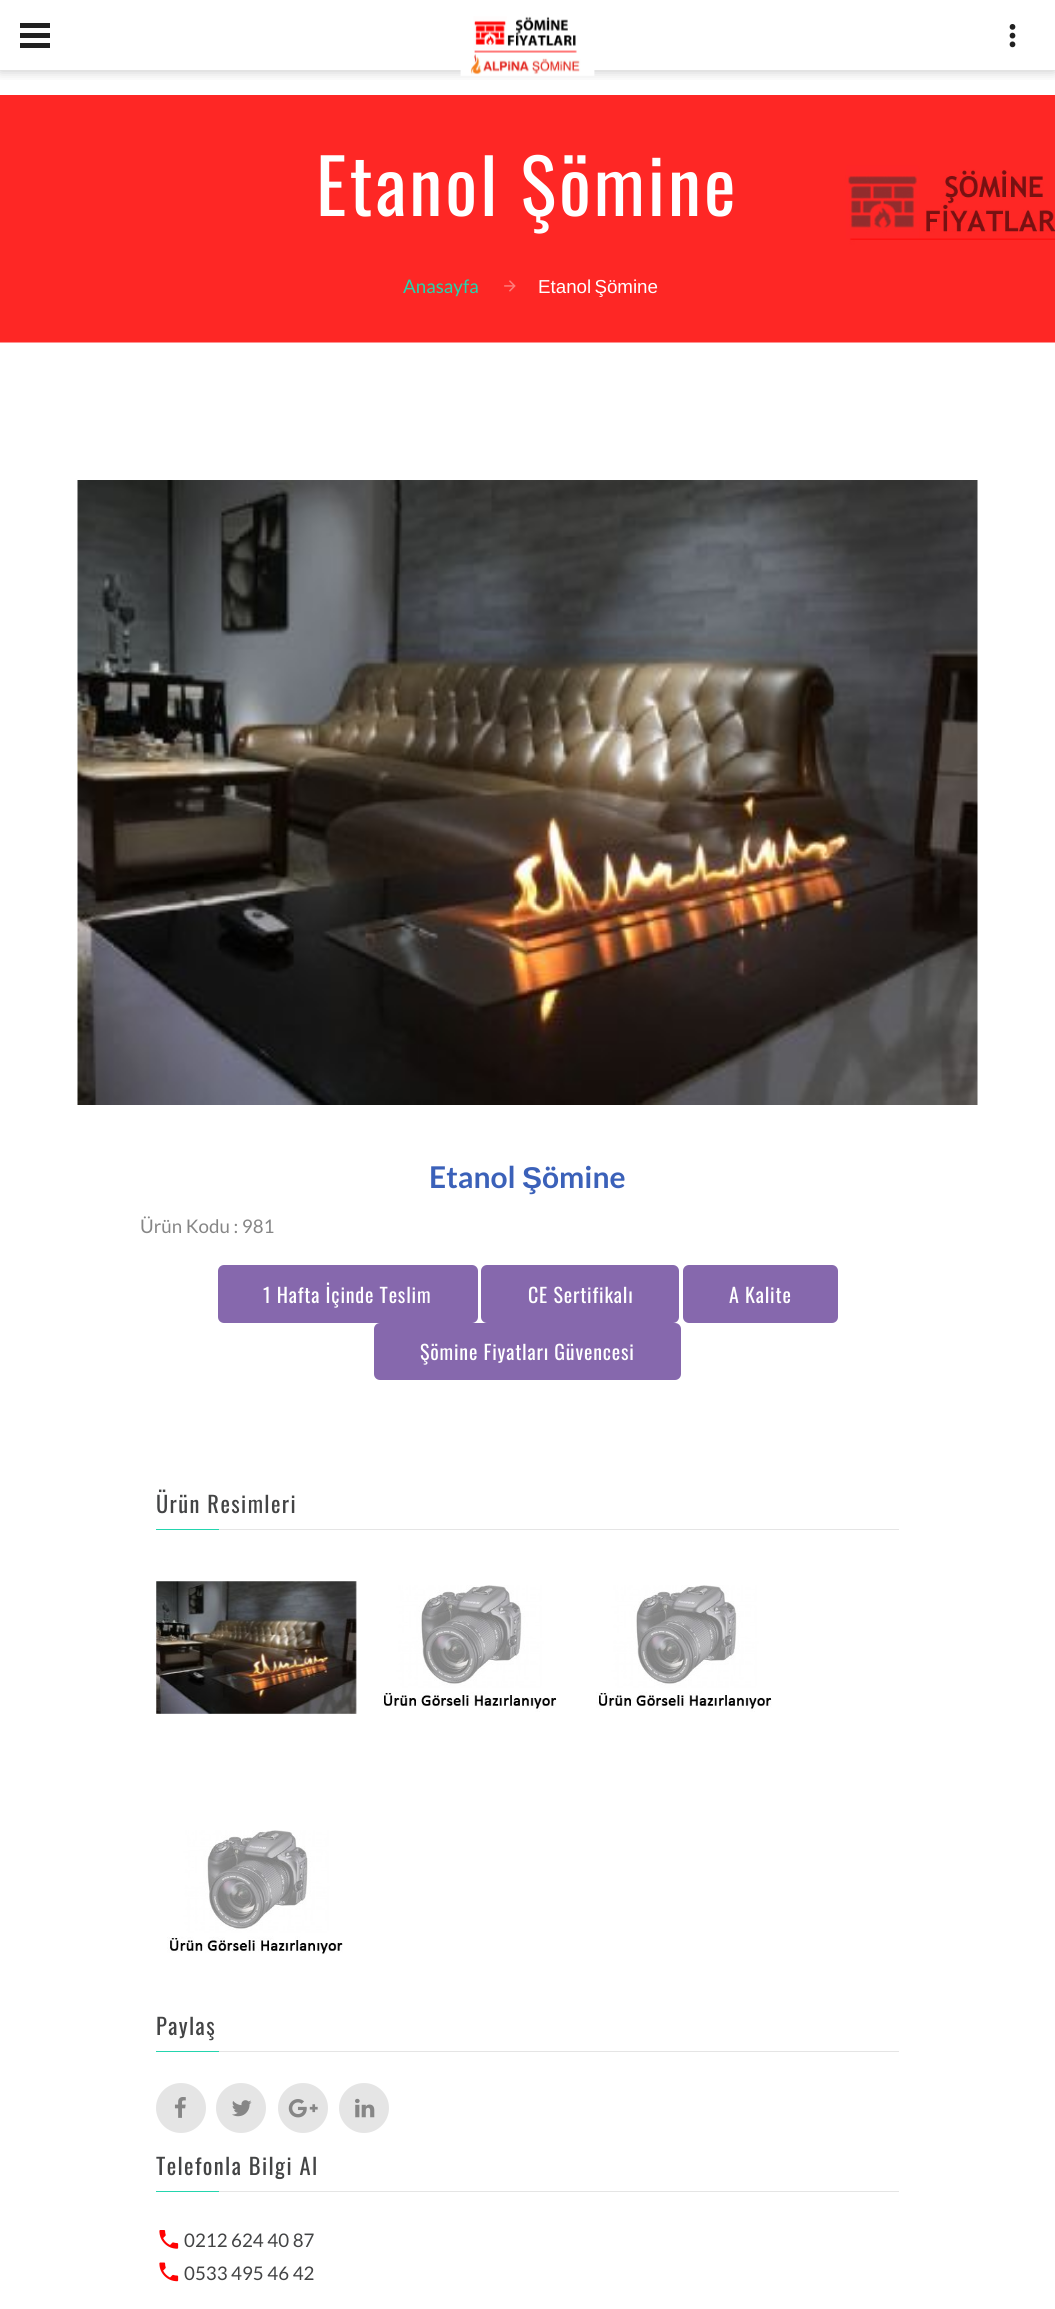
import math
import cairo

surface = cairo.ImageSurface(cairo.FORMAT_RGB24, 1055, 2309)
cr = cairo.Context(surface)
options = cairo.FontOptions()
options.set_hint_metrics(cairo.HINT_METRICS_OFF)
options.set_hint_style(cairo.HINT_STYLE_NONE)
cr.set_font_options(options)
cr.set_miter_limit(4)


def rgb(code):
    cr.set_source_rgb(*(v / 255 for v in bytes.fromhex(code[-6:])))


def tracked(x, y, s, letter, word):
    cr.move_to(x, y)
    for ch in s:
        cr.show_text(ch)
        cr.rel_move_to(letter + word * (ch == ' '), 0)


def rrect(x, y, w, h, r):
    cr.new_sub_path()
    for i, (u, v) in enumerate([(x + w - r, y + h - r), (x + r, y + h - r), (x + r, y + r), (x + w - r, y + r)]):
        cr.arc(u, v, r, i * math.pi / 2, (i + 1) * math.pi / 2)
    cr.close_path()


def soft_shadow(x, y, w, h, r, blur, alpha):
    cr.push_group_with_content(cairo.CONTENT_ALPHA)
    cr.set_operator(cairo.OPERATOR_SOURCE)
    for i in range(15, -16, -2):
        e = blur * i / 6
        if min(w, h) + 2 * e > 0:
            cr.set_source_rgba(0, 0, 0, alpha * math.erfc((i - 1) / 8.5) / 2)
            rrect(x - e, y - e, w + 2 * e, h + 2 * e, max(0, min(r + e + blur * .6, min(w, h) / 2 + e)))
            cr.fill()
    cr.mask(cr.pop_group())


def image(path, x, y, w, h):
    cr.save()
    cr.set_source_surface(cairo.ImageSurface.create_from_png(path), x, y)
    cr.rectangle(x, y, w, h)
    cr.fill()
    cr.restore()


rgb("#ffffff")
cr.paint()
cr.save()
cr.rectangle(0, 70, 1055, 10)
cr.clip()
rgb("#434445")
soft_shadow(0, 1, 1055, 70, 0, 6, 0.3)
cr.restore()
for x, y, w, h, color in [
    (20, 33, 30, 5, "#212121"),
    (20, 23, 30, 5, "#212121"),
    (20, 43, 30, 5, "#212121"),
]:
    rgb(color)
    cr.rectangle(x, y, w, h)
    cr.fill()
image("img/1.png", 460, 16, 135, 60)
image("img/2.png", 1009, 24, 7, 24)
image("img/3.png", 0, 95, 1055, 248)
image("img/4.png", 504, 280, 12, 12)
image("img/5.png", 77, 480, 901, 625)
rgb("#8668ad")
rrect(219.5, 1266.5, 257, 55, 4.5)
cr.fill_preserve()
cr.set_line_width(3)
cr.stroke()
rrect(482.5, 1266.5, 195, 55, 4.5)
cr.fill_preserve()
cr.stroke()
rrect(684.5, 1266.5, 152, 55, 4.5)
cr.fill_preserve()
cr.stroke()
rrect(375.5, 1324.5, 304, 54, 4.5)
cr.fill_preserve()
cr.stroke()
rgb("#e5e5e5")
cr.rectangle(219, 1529, 680, 1)
cr.fill()
rgb("#23d5ae")
cr.rectangle(156, 1529, 63, 1)
cr.fill()
image("img/6.png", 156, 1581, 201, 133)
image("img/7.png", 381, 1585, 176, 127)
image("img/7.png", 596, 1585, 176, 127)
image("img/8.png", 167, 1830, 176, 125)
rgb("#e5e5e5")
cr.rectangle(219, 2051, 680, 1)
cr.fill()
rgb("#23d5ae")
cr.rectangle(156, 2051, 63, 1)
cr.fill()
rgb("#e5e5e5")
cr.arc(181, 2108, 25, 0, 2 * math.pi)
cr.fill()
image("img/9.png", 174, 2097, 12, 21)
cr.arc(241, 2108, 25, 0, 2 * math.pi)
cr.fill()
image("img/10.png", 232, 2100, 20, 17)
cr.arc(303, 2108, 25, 0, 2 * math.pi)
cr.fill()
image("img/11.png", 288, 2099, 30, 19)
cr.arc(364, 2108, 25, 0, 2 * math.pi)
cr.fill()
image("img/12.png", 355, 2098, 20, 20)
cr.rectangle(219, 2191, 680, 1)
cr.fill()
rgb("#23d5ae")
cr.rectangle(156, 2191, 63, 1)
cr.fill()
image("img/13.png", 159, 2230, 20, 19)
image("img/14.png", 159, 2262, 20, 20)
cr.select_font_face("Oswald")
cr.set_font_size(75)
rgb("#ffffff")
tracked(316, 216, "Etanol Şömine", 3, 0)
cr.select_font_face("Lato")
cr.set_font_size(18.75)
rgb("#23d5ae")
cr.move_to(403, 293)
cr.show_text("Anasayfa")
cr.select_font_face("Liberation Sans")
rgb("#ffffff")
tracked(538, 293, "Etanol Şömine", 0, -2)
cr.select_font_face("Lato", cairo.FONT_SLANT_NORMAL, cairo.FONT_WEIGHT_BOLD)
cr.set_font_size(30)
rgb("#3b61b9")
cr.move_to(429, 1188)
cr.show_text("Etanol")
cr.select_font_face("Liberation Sans", cairo.FONT_SLANT_NORMAL, cairo.FONT_WEIGHT_BOLD)
cr.move_to(522, 1188)
cr.show_text("Ş")
cr.select_font_face("Lato", cairo.FONT_SLANT_NORMAL, cairo.FONT_WEIGHT_BOLD)
cr.move_to(542, 1188)
cr.show_text("ömine")
cr.select_font_face("Lato")
cr.set_font_size(18.75)
rgb("#868686")
cr.move_to(140, 1233)
cr.show_text("Ürün Kodu : 981")
cr.select_font_face("Oswald")
cr.set_font_size(20)
rgb("#ffffff")
for x, y, s in [
    (263, 1303, "1 Hafta İçinde Teslim"),
    (528, 1303, "CE Sertifikalı"),
    (729, 1303, "A Kalite"),
    (420, 1360, "Şömine Fiyatları Güvencesi"),
]:
    tracked(x, y, s, 0.8, 0)
cr.set_font_size(22.5)
rgb("#434445")
for x, y, s in [
    (156, 1513, "Ürün Resimleri"),
    (156, 2035, "Paylaş"),
    (156, 2175, "Telefonla Bilgi Al"),
]:
    tracked(x, y, s, 1.4, 0)
cr.select_font_face("Lato")
cr.set_font_size(18.75)
cr.move_to(184, 2247)
cr.show_text("0212 624 40 87")
cr.move_to(184, 2280)
cr.show_text("0533 495 46 42")
surface.write_to_png("page.png")
